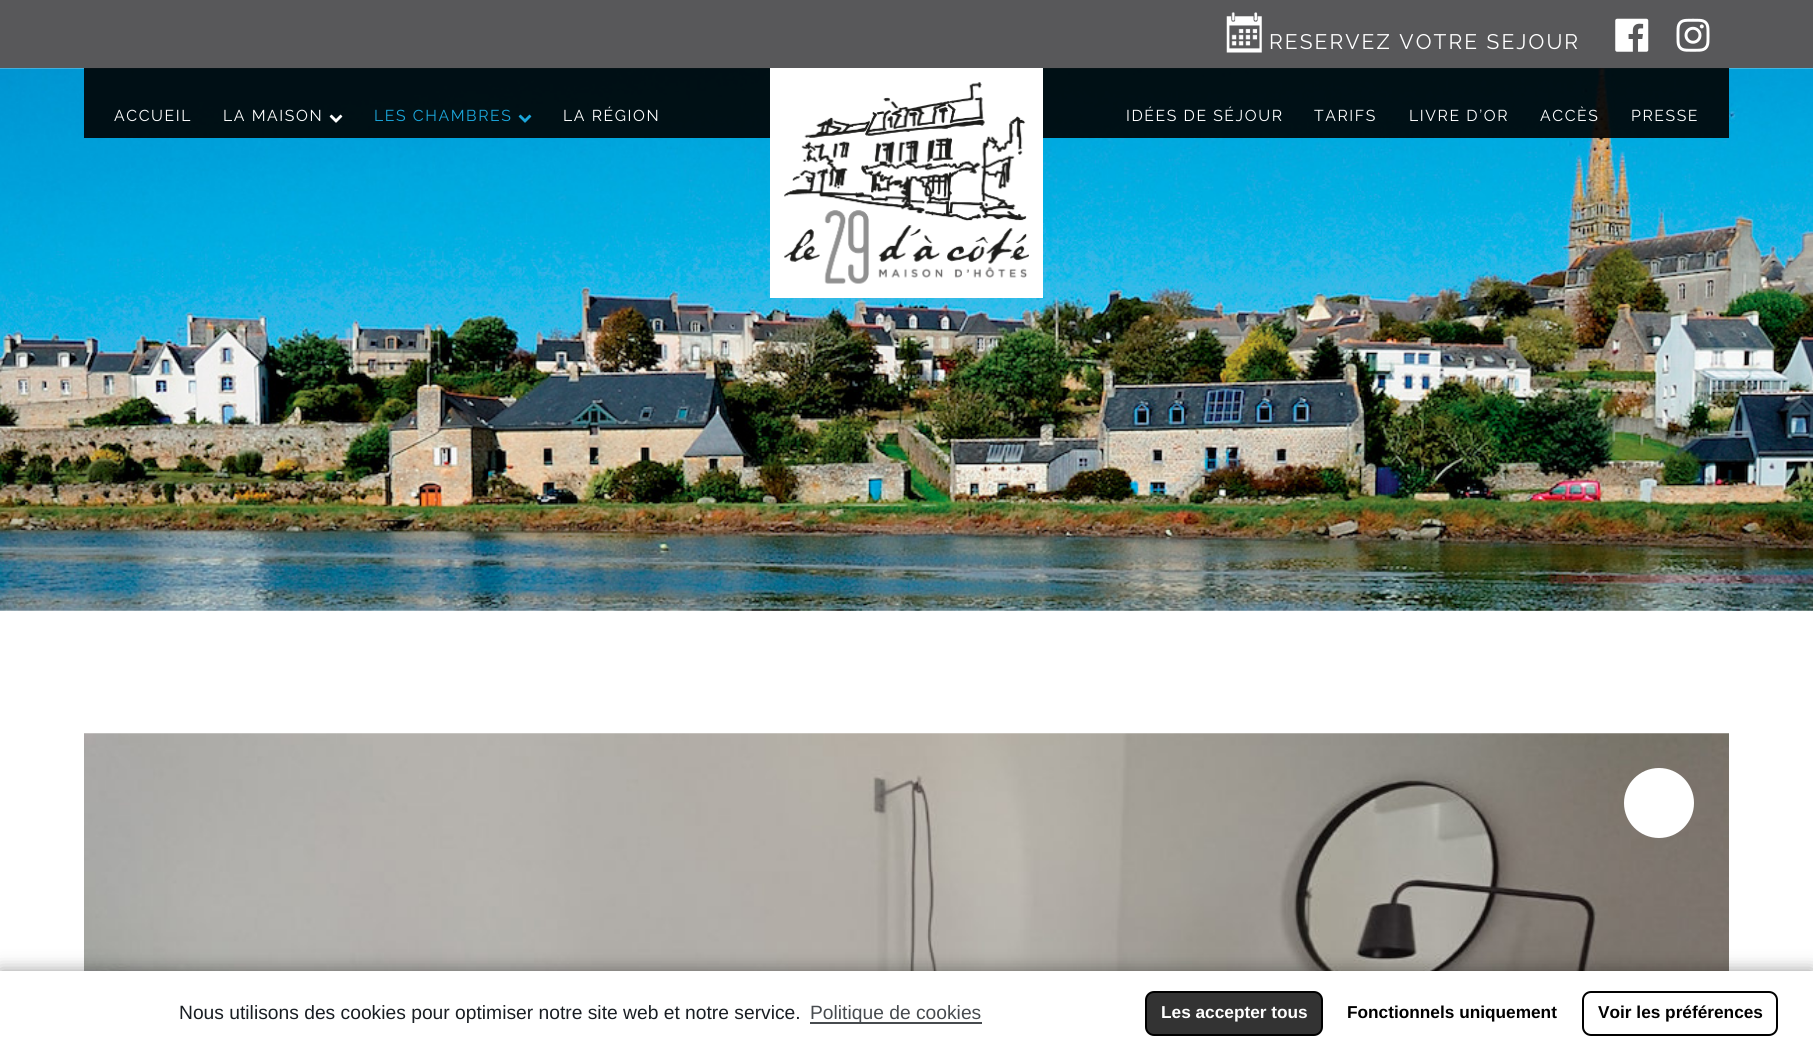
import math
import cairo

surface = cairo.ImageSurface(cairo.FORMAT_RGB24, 1813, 1055)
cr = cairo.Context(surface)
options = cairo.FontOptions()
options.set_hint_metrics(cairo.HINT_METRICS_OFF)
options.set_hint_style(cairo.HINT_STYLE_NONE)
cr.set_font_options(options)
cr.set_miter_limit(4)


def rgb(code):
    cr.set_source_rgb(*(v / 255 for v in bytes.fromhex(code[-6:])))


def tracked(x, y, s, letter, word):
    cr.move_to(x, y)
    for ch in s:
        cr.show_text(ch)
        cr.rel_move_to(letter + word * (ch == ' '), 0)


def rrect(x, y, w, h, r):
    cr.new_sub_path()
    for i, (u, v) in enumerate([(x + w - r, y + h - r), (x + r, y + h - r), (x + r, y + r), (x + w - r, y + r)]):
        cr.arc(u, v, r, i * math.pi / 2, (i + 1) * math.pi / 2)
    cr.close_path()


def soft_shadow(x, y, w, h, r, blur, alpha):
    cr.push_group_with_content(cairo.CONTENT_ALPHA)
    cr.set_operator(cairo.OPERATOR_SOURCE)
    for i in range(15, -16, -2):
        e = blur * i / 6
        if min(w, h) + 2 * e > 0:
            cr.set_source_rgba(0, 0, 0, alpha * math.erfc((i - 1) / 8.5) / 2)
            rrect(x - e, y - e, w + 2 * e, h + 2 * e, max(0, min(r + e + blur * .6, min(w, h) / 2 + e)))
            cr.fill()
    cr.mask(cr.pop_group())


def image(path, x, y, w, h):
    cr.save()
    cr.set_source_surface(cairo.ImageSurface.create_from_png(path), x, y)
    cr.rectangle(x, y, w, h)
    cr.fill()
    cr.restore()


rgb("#ffffff")
cr.paint()
rgb("#58585a")
cr.rectangle(0, 0, 1813, 68)
cr.fill()
image("img/1.png", 1226, 12, 36, 41)
image("img/2.png", 1615, 18, 34, 34)
image("img/3.png", 1676, 18, 34, 34)
image("img/7.png", 0, 68, 1813, 543)
cr.set_source_rgba(0, 0, 0, 0.9)
cr.rectangle(84, 68, 1645, 70)
cr.fill()
image("img/4.png", 329, 114, 14, 9)
image("img/5.png", 518, 114, 14, 9)
rgb("#ffffff")
cr.rectangle(770, 68, 273, 230)
cr.fill()
image("img/6.png", 784, 82, 245, 202)
image("img/8.png", 84, 733, 1645, 238)
cr.arc(1659, 803, 35, 0, 2 * math.pi)
cr.fill()
rgb("#000000")
soft_shadow(0, 971, 1813, 84, 0, 9, 0.4)
rgb("#ffffff")
cr.rectangle(0, 971, 1813, 84)
cr.fill()
rgb("#474b4f")
cr.rectangle(810, 1022, 172, 2)
cr.fill()
rgb("#333333")
rrect(1146, 992, 176, 43, 8)
cr.fill_preserve()
rgb("#000000")
cr.stroke()
rrect(1583, 992, 194, 43, 8)
cr.stroke()
cr.select_font_face("Raleway")
cr.set_font_size(21)
rgb("#ffffff")
tracked(1269, 49, "RESERVEZ VOTRE SEJOUR", 2.1, 0)
cr.set_font_size(15.75)
tracked(114, 121, "ACCUEIL", 1.6, 0)
tracked(223, 121, "LA MAISON", 1.6, 0)
rgb("#1ba6da")
tracked(374, 121, "LES CHAMBRES", 1.6, 0)
rgb("#ffffff")
for x, y, s in [
    (563, 121, "LA RÉGION"),
    (1126, 121, "IDÉES DE SÉJOUR"),
    (1314, 121, "TARIFS"),
    (1409, 121, "LIVRE D’OR"),
    (1540, 121, "ACCÈS"),
    (1631, 121, "PRESSE"),
]:
    tracked(x, y, s, 1.6, 0)
cr.select_font_face("Liberation Sans")
cr.set_font_size(19.25)
rgb("#191e23")
cr.move_to(179, 1019)
cr.show_text("Nous utilisons des cookies pour optimiser notre site web et notre service.")
rgb("#474b4f")
cr.move_to(810, 1019)
cr.show_text("Politique de cookies")
cr.select_font_face("Liberation Sans", cairo.FONT_SLANT_NORMAL, cairo.FONT_WEIGHT_BOLD)
cr.set_font_size(17.25)
rgb("#ffffff")
cr.move_to(1161, 1018)
cr.show_text("Les accepter tous")
rgb("#000000")
cr.move_to(1347, 1018)
cr.show_text("Fonctionnels uniquement")
cr.move_to(1598, 1018)
cr.show_text("Voir les préférences")
surface.write_to_png("page.png")
